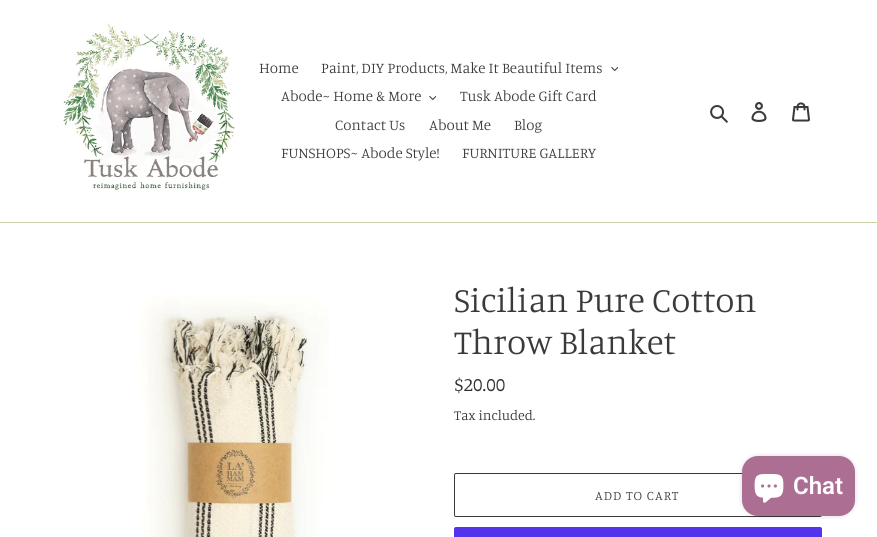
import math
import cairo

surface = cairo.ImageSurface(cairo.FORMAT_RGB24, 877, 537)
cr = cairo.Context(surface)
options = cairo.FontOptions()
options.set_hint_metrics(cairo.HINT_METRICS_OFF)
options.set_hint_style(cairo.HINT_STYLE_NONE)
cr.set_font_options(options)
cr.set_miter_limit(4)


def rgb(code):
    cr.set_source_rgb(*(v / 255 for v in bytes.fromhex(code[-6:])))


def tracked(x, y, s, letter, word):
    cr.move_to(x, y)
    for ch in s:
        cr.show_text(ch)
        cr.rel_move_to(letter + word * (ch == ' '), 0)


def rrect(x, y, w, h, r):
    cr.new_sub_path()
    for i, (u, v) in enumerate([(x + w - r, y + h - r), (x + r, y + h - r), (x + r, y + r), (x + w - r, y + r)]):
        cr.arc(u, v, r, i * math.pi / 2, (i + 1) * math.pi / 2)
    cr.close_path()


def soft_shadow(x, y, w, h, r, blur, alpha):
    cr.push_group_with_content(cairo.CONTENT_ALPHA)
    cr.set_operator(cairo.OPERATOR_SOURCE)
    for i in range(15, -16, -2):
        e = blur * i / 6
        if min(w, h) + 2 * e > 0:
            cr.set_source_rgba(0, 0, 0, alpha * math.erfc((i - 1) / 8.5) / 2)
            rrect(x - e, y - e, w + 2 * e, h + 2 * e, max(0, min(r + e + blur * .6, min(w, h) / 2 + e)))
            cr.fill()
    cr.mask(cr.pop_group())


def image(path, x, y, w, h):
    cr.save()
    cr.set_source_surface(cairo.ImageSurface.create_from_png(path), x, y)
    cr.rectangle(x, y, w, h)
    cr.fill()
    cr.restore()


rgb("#ffffff")
cr.paint()
rgb("#cad4a7")
cr.rectangle(0, 222, 877, 1)
cr.fill()
image("img/1.png", 63, 23, 172, 170)
image("img/2.png", 611, 67, 7, 4)
image("img/2.png", 429, 96, 7, 4)
image("img/3.png", 710, 105, 18, 18)
image("img/4.png", 751, 102, 16, 20)
image("img/5.png", 792, 102, 18, 20)
image("img/6.png", 139, 294, 190, 243)
rrect(454.5, 473.5, 367, 43, 1.5)
rgb("#3a3a3a")
cr.set_line_width(1)
cr.stroke()
rgb("#5433eb")
rrect(454, 527, 368, 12, 2)
cr.fill()
rgb("#000000")
soft_shadow(742, 456, 113, 60, 16, 2.5, 0.15)
rgb("#ac6f93")
rrect(742, 456, 113, 60, 16)
cr.fill()
image("img/7.png", 754, 474, 30, 29)
cr.select_font_face("Manuale Light")
cr.set_font_size(15)
rgb("#3a3a3a")
for x, y, s in [
    (259, 73, "Home"),
    (321, 73, "Paint, DIY Products, Make It Beautiful Items"),
    (281, 101, "Abode~ Home & More"),
    (460, 101, "Tusk Abode Gift Card"),
    (335, 130, "Contact Us"),
    (429, 130, "About Me"),
    (514, 130, "Blog"),
    (281, 158, "FUNSHOPS~ Abode Style!"),
    (462, 158, "FURNITURE GALLERY"),
]:
    cr.move_to(x, y)
    cr.show_text(s)
cr.set_font_size(35)
cr.move_to(454, 312)
cr.show_text("Sicilian Pure Cotton")
cr.move_to(454, 354)
cr.show_text("Throw Blanket")
cr.select_font_face("Manuale")
cr.set_font_size(19)
rgb("#333232")
cr.move_to(454, 391)
cr.show_text("$20.00")
cr.select_font_face("Manuale Light")
cr.set_font_size(14)
cr.move_to(454, 420)
cr.show_text("Tax included.")
cr.set_font_size(13)
rgb("#3a3a3a")
tracked(595, 500, "ADD TO CART", 1, 0)
cr.select_font_face("Roboto SemiBold")
cr.set_font_size(24)
rgb("#ffffff")
cr.move_to(793, 494)
cr.show_text("Chat")
surface.write_to_png("page.png")
